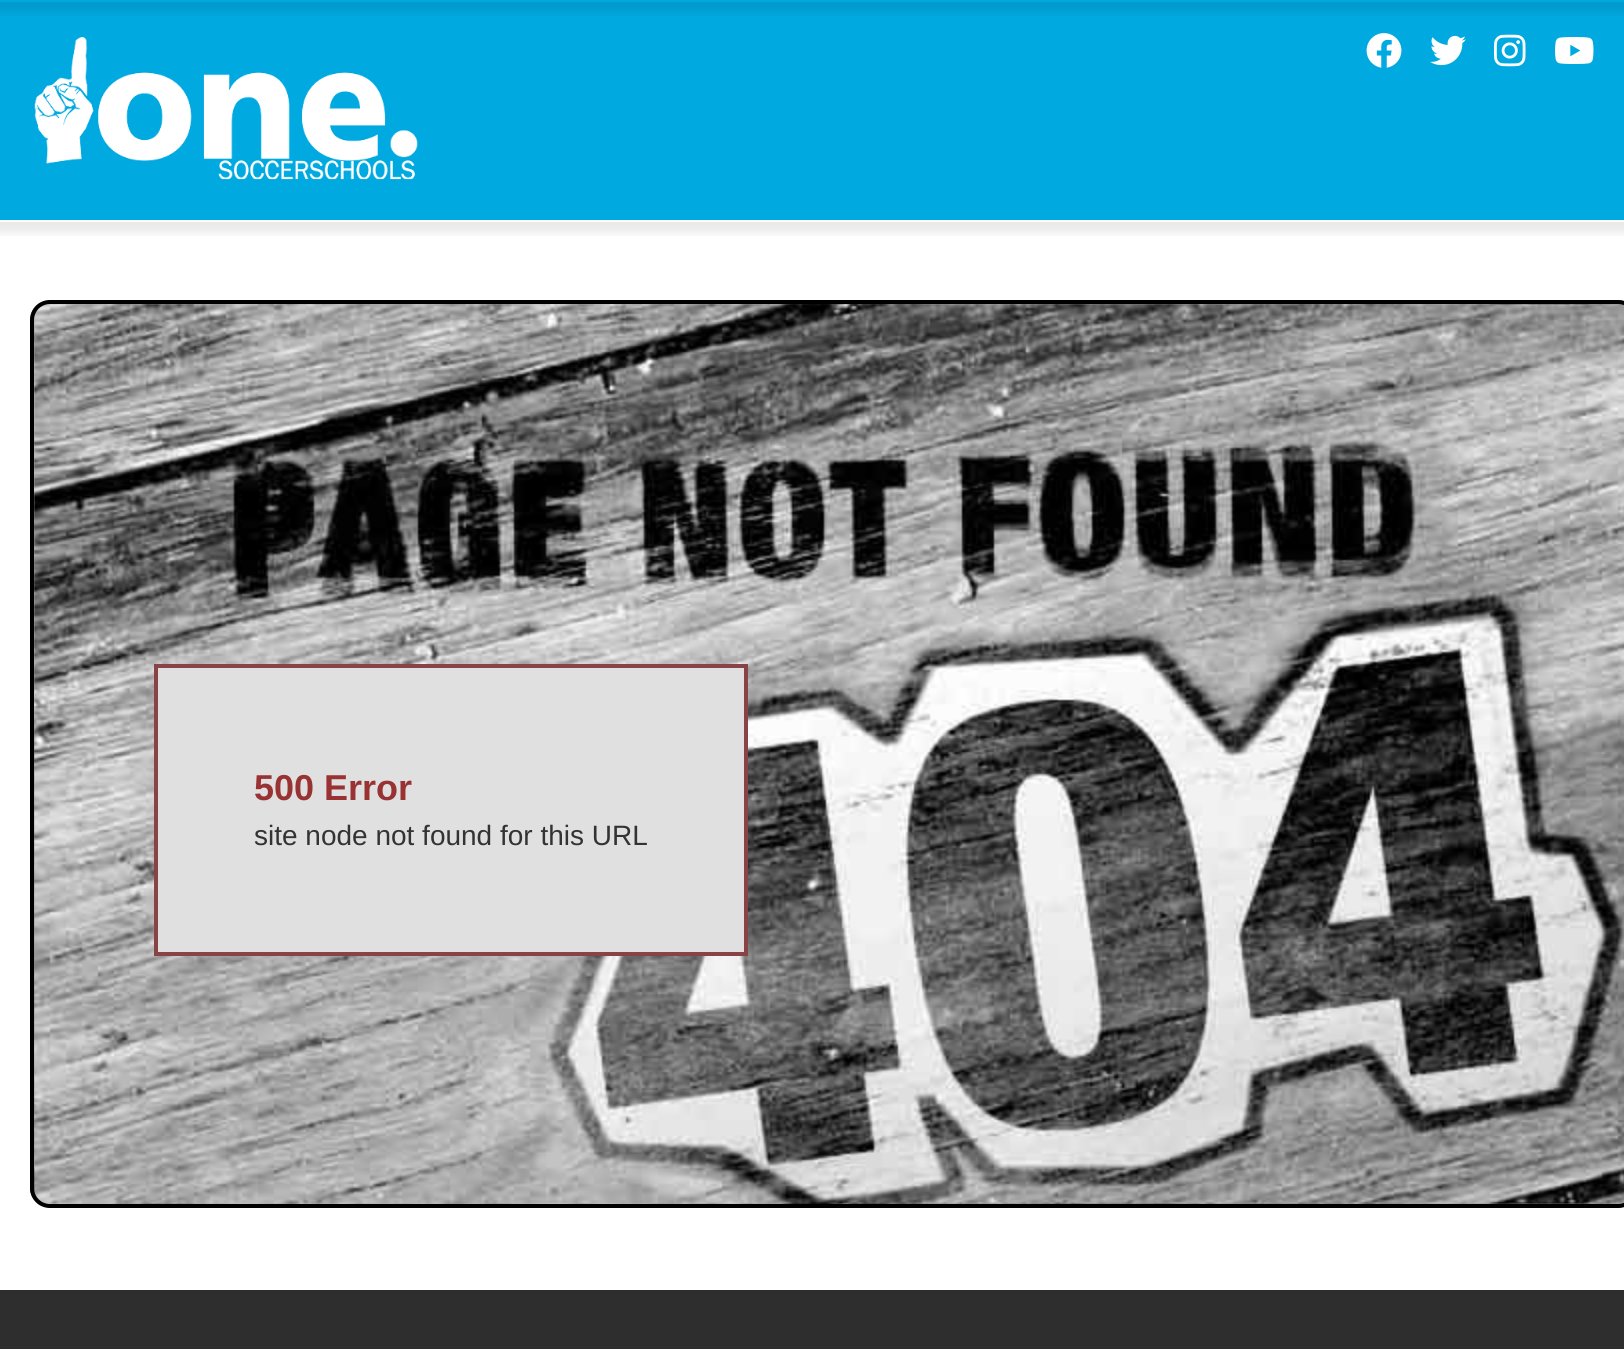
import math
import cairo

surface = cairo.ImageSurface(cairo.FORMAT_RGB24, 1624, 1349)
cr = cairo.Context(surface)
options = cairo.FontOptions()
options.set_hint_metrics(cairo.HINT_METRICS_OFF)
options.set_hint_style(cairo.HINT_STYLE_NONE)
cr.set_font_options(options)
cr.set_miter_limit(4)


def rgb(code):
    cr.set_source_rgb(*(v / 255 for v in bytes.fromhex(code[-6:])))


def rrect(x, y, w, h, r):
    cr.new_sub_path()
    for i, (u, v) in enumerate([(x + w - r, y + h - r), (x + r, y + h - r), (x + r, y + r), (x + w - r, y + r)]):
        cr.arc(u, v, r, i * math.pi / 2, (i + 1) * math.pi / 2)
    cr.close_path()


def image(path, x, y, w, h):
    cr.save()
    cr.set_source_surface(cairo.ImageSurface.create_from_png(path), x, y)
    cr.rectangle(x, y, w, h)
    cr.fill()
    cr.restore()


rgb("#2e2e2e")
cr.paint()
rgb("#01a9e1")
cr.rectangle(0, 0, 1624, 220)
cr.fill()
image("img/1.png", 0, 2, 1624, 14)
image("img/2.png", 34, 37, 384, 143)
image("img/3.png", 1366, 33, 36, 35)
image("img/4.png", 1430, 35, 36, 31)
image("img/5.png", 1494, 34, 32, 33)
image("img/6.png", 1555, 37, 39, 27)
rgb("#ffffff")
cr.rectangle(0, 220, 1624, 1070)
cr.fill()
image("img/7.png", 0, 222, 1624, 14)
image("img/8.png", 30, 300, 1594, 908)
rrect(32, 302, 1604, 904, 18)
rgb("#000000")
cr.set_line_width(4)
cr.stroke()
rgb("#e0e0e0")
cr.rectangle(156, 666, 590, 288)
cr.fill_preserve()
rgb("#884444")
cr.stroke()
cr.select_font_face("Liberation Sans", cairo.FONT_SLANT_NORMAL, cairo.FONT_WEIGHT_BOLD)
cr.set_font_size(36)
rgb("#993333")
cr.move_to(254, 800)
cr.show_text("500 Error")
cr.select_font_face("Liberation Sans")
cr.set_font_size(28)
rgb("#333333")
cr.move_to(254, 845)
cr.show_text("site node not found for this URL")
surface.write_to_png("page.png")
